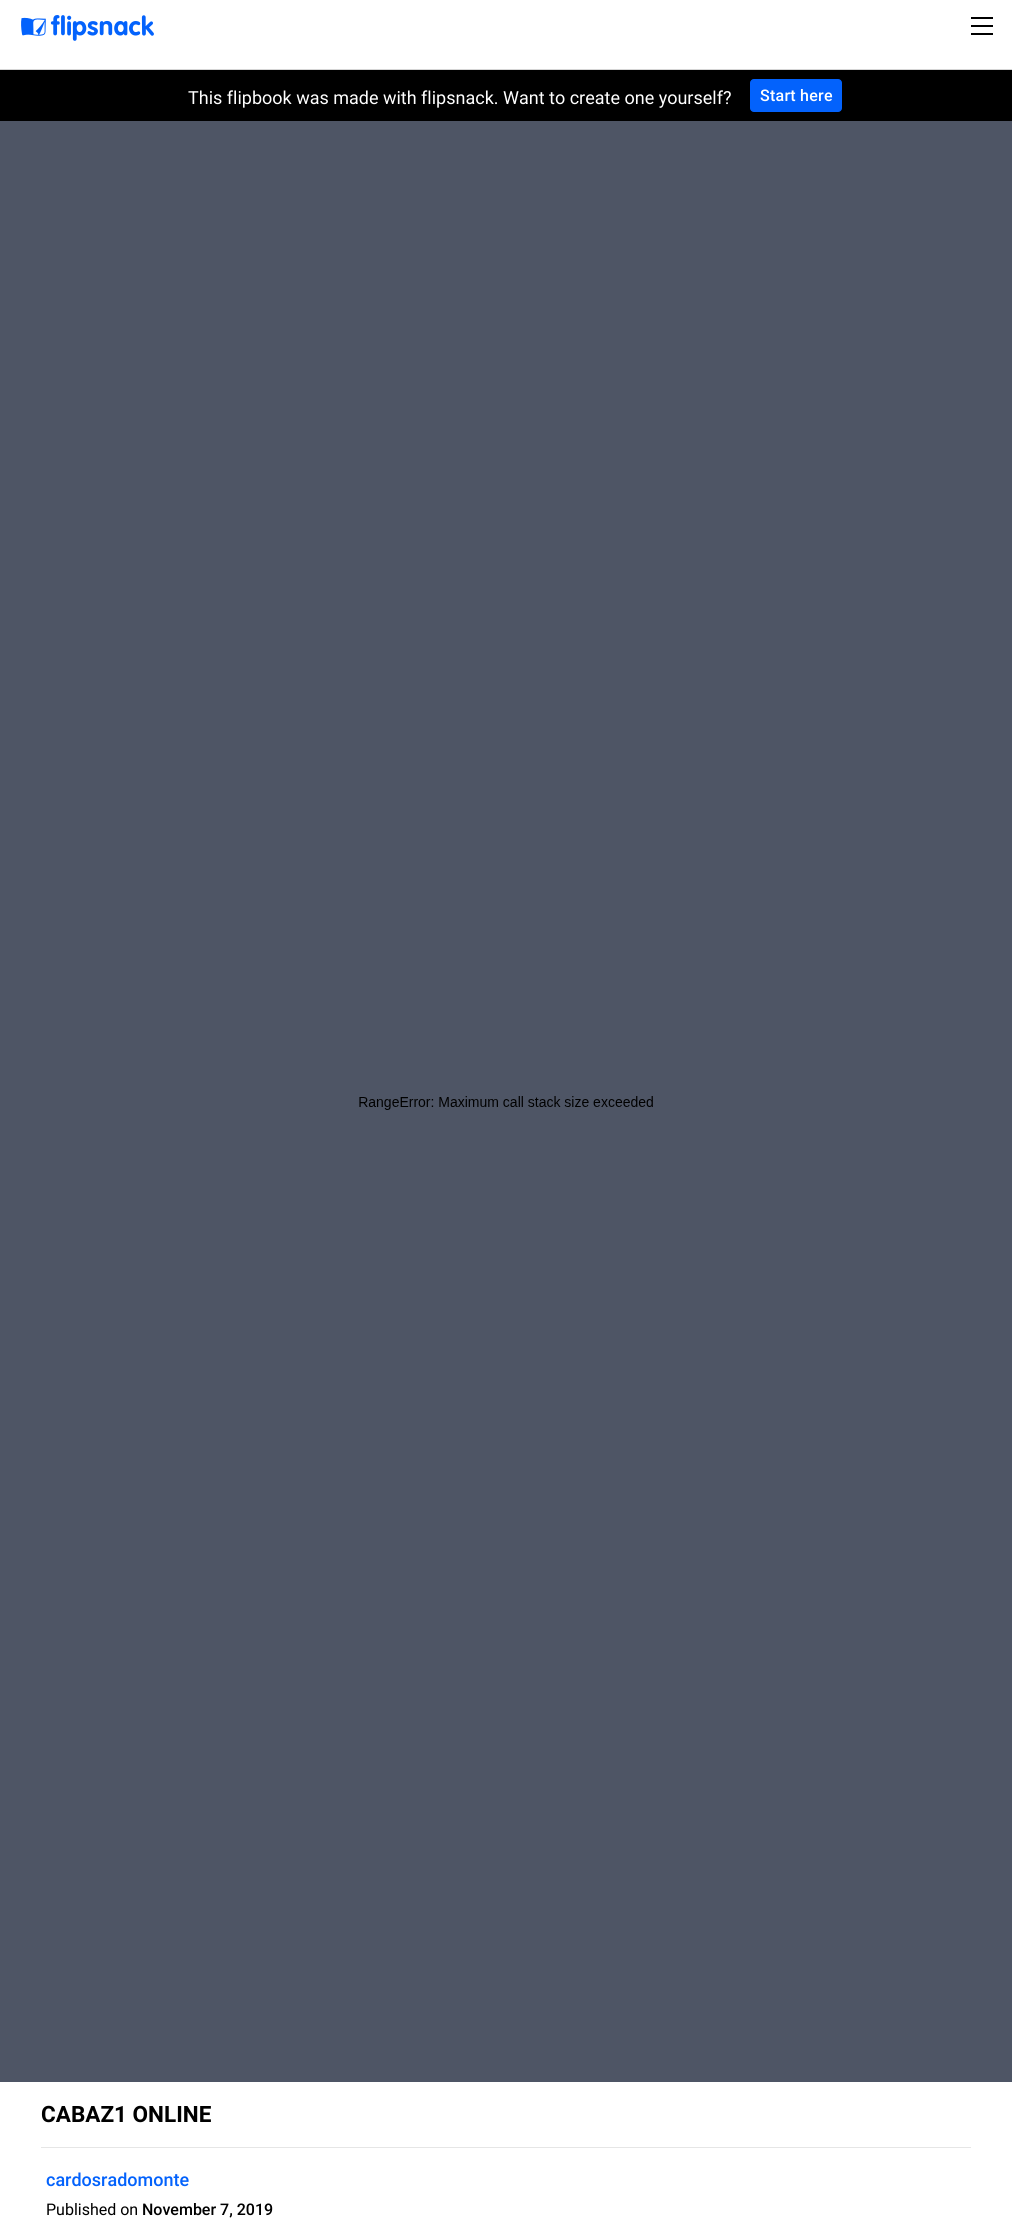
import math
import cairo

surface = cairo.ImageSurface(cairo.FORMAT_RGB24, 1012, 2226)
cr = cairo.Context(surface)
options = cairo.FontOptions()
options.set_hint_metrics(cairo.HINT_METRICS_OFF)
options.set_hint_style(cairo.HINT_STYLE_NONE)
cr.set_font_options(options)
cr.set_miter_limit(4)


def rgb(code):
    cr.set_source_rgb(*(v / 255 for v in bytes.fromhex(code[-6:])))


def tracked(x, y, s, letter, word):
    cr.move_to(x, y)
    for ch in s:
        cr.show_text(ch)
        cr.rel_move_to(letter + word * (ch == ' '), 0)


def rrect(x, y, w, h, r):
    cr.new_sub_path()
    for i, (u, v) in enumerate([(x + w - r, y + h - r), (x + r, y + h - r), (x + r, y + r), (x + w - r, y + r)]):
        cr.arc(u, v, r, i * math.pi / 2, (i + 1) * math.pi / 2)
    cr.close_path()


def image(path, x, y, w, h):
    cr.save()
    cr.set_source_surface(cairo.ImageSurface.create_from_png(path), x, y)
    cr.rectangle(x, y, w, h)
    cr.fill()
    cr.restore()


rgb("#ffffff")
cr.paint()
rgb("#d5d5d5")
cr.rectangle(0, 69, 1012, 1)
cr.fill()
image("img/1.png", 21, 15, 133, 26)
for x, y, w, h, color in [
    (971, 17, 22, 2, "#000000"),
    (971, 25, 22, 2, "#000000"),
    (971, 33, 22, 2, "#000000"),
    (0, 70, 1012, 51, "#000000"),
]:
    rgb(color)
    cr.rectangle(x, y, w, h)
    cr.fill()
rgb("#0362fc")
rrect(750.5, 79.5, 91, 32, 3.5)
cr.fill_preserve()
cr.set_line_width(1)
cr.stroke()
rgb("#4e5565")
cr.rectangle(0, 121, 1012, 1961)
cr.fill()
image("img/2.png", 359, 1096, 294, 14)
rgb("#e6e6e6")
cr.rectangle(41, 2147, 930, 1)
cr.fill()
cr.select_font_face("Roboto")
cr.set_font_size(18)
rgb("#ffffff")
cr.move_to(188, 104)
cr.show_text("This flipbook was made with flipsnack. Want to create one yourself?")
cr.select_font_face("Roboto Medium")
cr.set_font_size(16)
tracked(760, 101, "Start here", 0.25, 0)
cr.select_font_face("Roboto", cairo.FONT_SLANT_NORMAL, cairo.FONT_WEIGHT_BOLD)
cr.set_font_size(22.5)
rgb("#000000")
cr.move_to(41, 2122)
cr.show_text("CABAZ1 ONLINE")
cr.select_font_face("Roboto Medium")
cr.set_font_size(18)
rgb("#0362fc")
cr.move_to(46, 2186)
cr.show_text("cardosradomonte")
cr.select_font_face("Roboto")
cr.set_font_size(16)
rgb("#000000")
cr.move_to(46, 2215)
cr.show_text("Published on")
cr.select_font_face("Roboto Medium")
cr.move_to(142, 2215)
cr.show_text("November 7, 2019")
surface.write_to_png("page.png")
